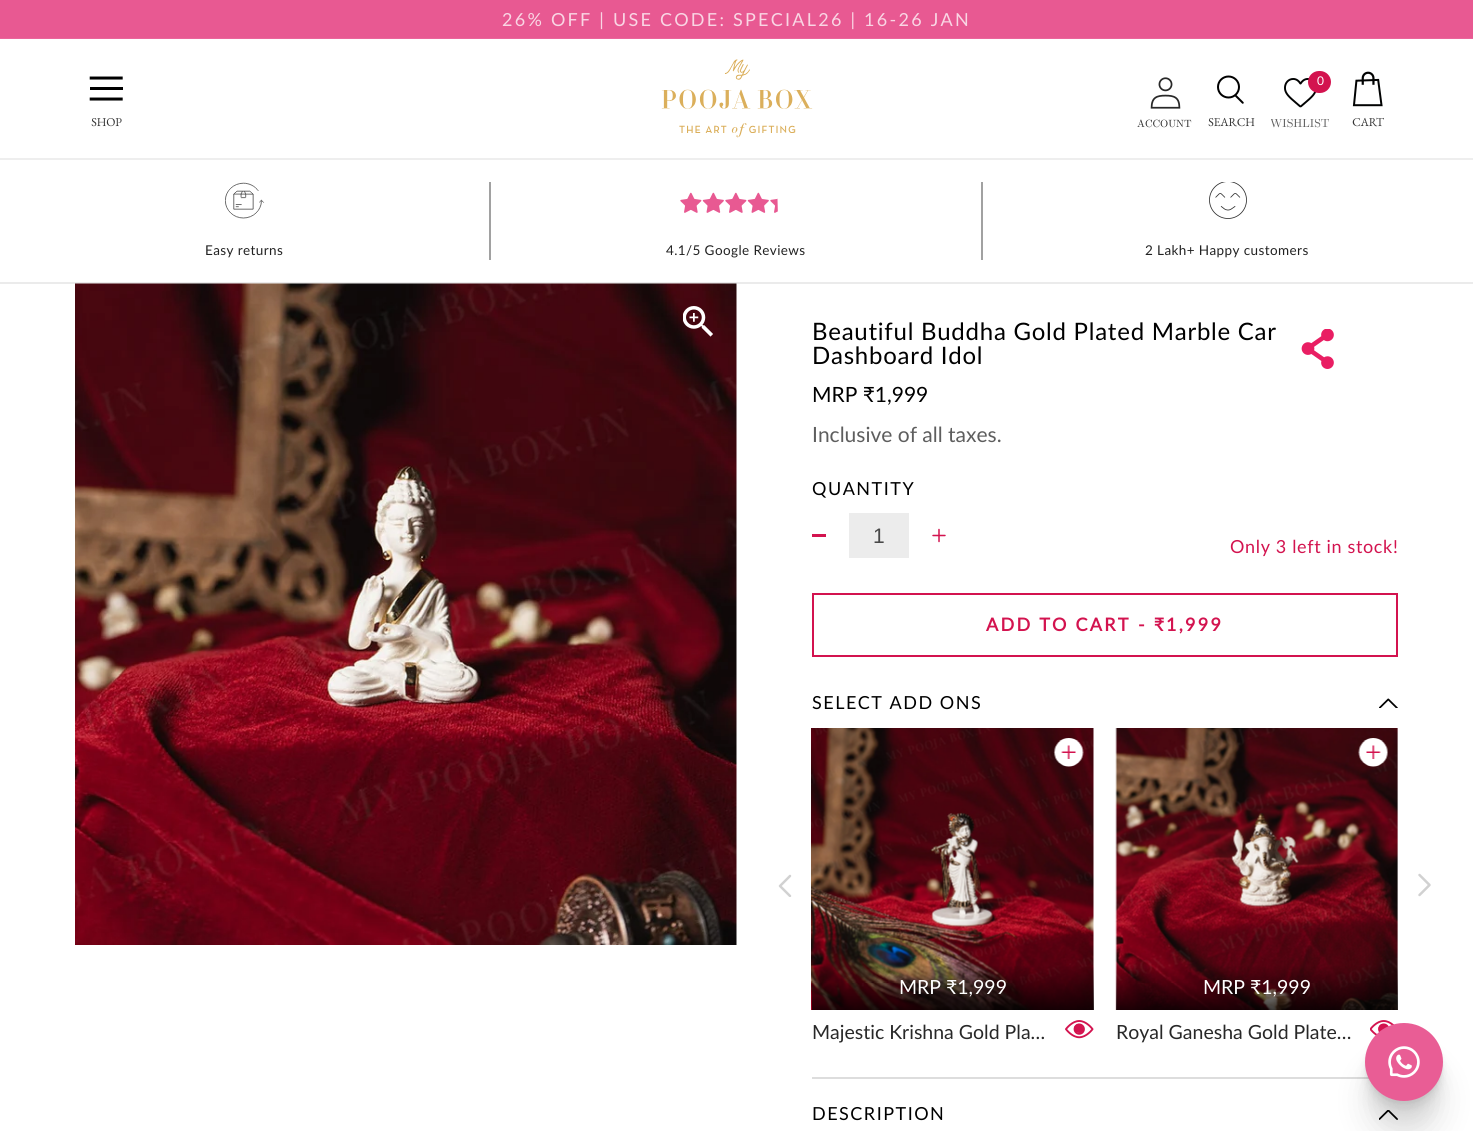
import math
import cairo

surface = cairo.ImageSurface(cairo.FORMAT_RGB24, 1473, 1131)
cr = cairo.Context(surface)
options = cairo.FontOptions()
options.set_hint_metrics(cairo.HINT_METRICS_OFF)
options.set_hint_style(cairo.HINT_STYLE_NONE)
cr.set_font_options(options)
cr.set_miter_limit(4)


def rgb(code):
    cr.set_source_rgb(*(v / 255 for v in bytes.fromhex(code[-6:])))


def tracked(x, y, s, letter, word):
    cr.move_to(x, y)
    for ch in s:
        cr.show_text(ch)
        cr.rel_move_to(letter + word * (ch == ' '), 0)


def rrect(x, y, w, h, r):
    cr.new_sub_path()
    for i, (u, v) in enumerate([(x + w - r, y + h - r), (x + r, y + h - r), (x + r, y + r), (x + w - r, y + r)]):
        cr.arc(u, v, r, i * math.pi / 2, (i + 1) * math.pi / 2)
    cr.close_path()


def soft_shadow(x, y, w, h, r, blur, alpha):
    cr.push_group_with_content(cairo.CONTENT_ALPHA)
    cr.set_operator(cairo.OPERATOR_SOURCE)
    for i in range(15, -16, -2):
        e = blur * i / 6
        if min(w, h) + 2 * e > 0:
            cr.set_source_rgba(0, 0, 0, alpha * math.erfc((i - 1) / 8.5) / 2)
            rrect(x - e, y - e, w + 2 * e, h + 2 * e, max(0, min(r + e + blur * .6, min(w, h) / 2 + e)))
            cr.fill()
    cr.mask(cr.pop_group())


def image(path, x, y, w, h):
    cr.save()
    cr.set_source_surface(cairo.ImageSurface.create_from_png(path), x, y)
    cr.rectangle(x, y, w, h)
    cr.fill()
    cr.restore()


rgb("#ffffff")
cr.paint()
for x, y, w, h, color in [
    (0, 0, 1473, 38, "#e85992"),
    (0, 38, 1473, 1, "#ea669b"),
    (0, 158, 1473, 2, "#eeeeee"),
]:
    rgb(color)
    cr.rectangle(x, y, w, h)
    cr.fill()
image("img/1.png", 89, 76, 34, 51)
image("img/2.png", 661, 59, 152, 79)
image("img/3.png", 1150, 77, 31, 32)
image("img/4.png", 1208, 75, 47, 52)
image("img/5.png", 1284, 78, 33, 30)
rgb("#d3134f")
rrect(1308, 71, 23, 22, 11)
cr.fill()
image("img/6.png", 1352, 71, 32, 56)
rgb("#ebebeb")
cr.rectangle(0, 282, 1473, 2)
cr.fill()
rgb("#a1a1a1")
cr.rectangle(489, 182, 2, 78)
cr.fill()
image("img/7.png", 225, 182, 40, 37)
cr.rectangle(981, 182, 2, 78)
cr.fill()
image("img/8.png", 680, 192, 98, 21)
image("img/9.png", 1209, 182, 38, 37)
image("img/10.png", 75, 283, 662, 662)
image("img/11.png", 683, 306, 30, 31)
image("img/12.png", 1301, 329, 33, 40)
rgb("#d3134f")
cr.rectangle(812, 534, 14, 3)
cr.fill()
rgb("#ececec")
cr.rectangle(849, 513, 60, 45)
cr.fill()
image("img/13.png", 932, 528, 14, 15)
cr.rectangle(813, 594, 584, 62)
rgb("#d3134f")
cr.stroke()
image("img/14.png", 1379, 698, 19, 10)
image("img/15.png", 778, 874, 14, 23)
image("img/16.png", 1418, 873, 13, 24)
image("img/18.png", 811, 728, 283, 282)
image("img/17.png", 1053, 738, 31, 29)
gradient = cairo.LinearGradient(953, 965, 953, 1010)
gradient.add_color_stop_rgba(0, 0, 0, 0, 0)
gradient.add_color_stop_rgba(1, 0, 0, 0, 0.76)
cr.set_source(gradient)
cr.rectangle(812, 966, 282, 44)
cr.fill()
image("img/19.png", 1065, 1020, 29, 19)
image("img/21.png", 1115, 728, 283, 282)
image("img/20.png", 1358, 738, 30, 29)
gradient = cairo.LinearGradient(1257, 965, 1257, 1010)
gradient.add_color_stop_rgba(0, 0, 0, 0, 0)
gradient.add_color_stop_rgba(1, 0, 0, 0, 0.76)
cr.set_source(gradient)
cr.rectangle(1116, 966, 282, 44)
cr.fill()
image("img/22.png", 1370, 1020, 25, 16)
rgb("#dddddd")
cr.rectangle(812, 1077, 557, 2)
cr.fill()
image("img/23.png", 1379, 1110, 19, 10)
rgb("#000000")
soft_shadow(1365, 1061, 78, 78, 39, 15, 0.1)
soft_shadow(1365, 1043, 78, 78, 39, 7, 0.06)
soft_shadow(1365, 1032, 78, 78, 39, 3, 0.06)
soft_shadow(1365, 1026, 78, 78, 39, 1, 0.04)
rgb("#e95d95")
cr.arc(1404, 1062, 39, 0, 2 * math.pi)
cr.fill()
image("img/24.png", 1388, 1046, 32, 32)
cr.select_font_face("Lato")
cr.set_font_size(18)
rgb("#f9d6e4")
tracked(502, 26, "26% OFF | USE CODE: SPECIAL26 | 16-26 JAN", 2.25, 0)
cr.select_font_face("Latin Modern Math")
cr.set_font_size(10.5)
rgb("#282828")
cr.move_to(1137, 127)
cr.show_text("ACCOUNT")
cr.select_font_face("Lato")
cr.set_font_size(12)
rgb("#ffffff")
cr.move_to(1317, 85)
cr.show_text("0")
cr.save()
cr.rectangle(1271, 119, 58, 12)
cr.clip()
cr.select_font_face("Latin Modern Math")
rgb("#5e5e5e")
cr.move_to(1270, 127)
cr.show_text("WISHLIST")
cr.restore()
cr.set_font_size(13.5)
rgb("#222222")
for x, y, s in [
    (205, 255, "Easy returns"),
    (666, 255, "4.1/5 Google Reviews"),
    (1145, 255, "2 Lakh+ Happy customers"),
]:
    tracked(x, y, s, 0.4, 0)
cr.set_font_size(24)
rgb("#000000")
tracked(812, 340, "Beautiful Buddha Gold Plated Marble Car", 0.75, 0)
tracked(812, 364, "Dashboard Idol", 0.75, 0)
cr.set_font_size(21)
cr.move_to(812, 402)
cr.show_text("MRP ₹1,999")
rgb("#5e5e5e")
cr.move_to(812, 442)
cr.show_text("Inclusive of all taxes.")
cr.set_font_size(18)
rgb("#000000")
tracked(812, 495, "QUANTITY", 1.5, 0)
cr.select_font_face("Liberation Sans")
cr.set_font_size(21)
rgb("#484848")
cr.move_to(873, 543)
cr.show_text("1")
cr.select_font_face("Lato")
cr.set_font_size(18)
rgb("#d3134f")
tracked(1230, 553, "Only 3 left in stock!", 0.65, 0)
cr.select_font_face("Lato", cairo.FONT_SLANT_NORMAL, cairo.FONT_WEIGHT_BOLD)
for x, y, s in [
    (986, 631, "ADD TO CART"),
    (1138, 631, "- ₹"),
    (1166, 631, "1,999"),
]:
    tracked(x, y, s, 2.25, 0)
cr.select_font_face("Lato")
rgb("#000000")
tracked(812, 709, "SELECT ADD ONS", 1.5, 0)
cr.set_font_size(19.5)
rgb("#ffffff")
cr.move_to(899, 994)
cr.show_text("MRP ₹1,999")
rgb("#282828")
cr.move_to(812, 1039)
cr.show_text("Majestic Krishna Gold Pla…")
rgb("#ffffff")
cr.move_to(1203, 994)
cr.show_text("MRP ₹1,999")
rgb("#282828")
cr.move_to(1116, 1039)
cr.show_text("Royal Ganesha Gold Plate…")
cr.set_font_size(18)
rgb("#000000")
tracked(812, 1120, "DESCRIPTION", 1.5, 0)
surface.write_to_png("page.png")
